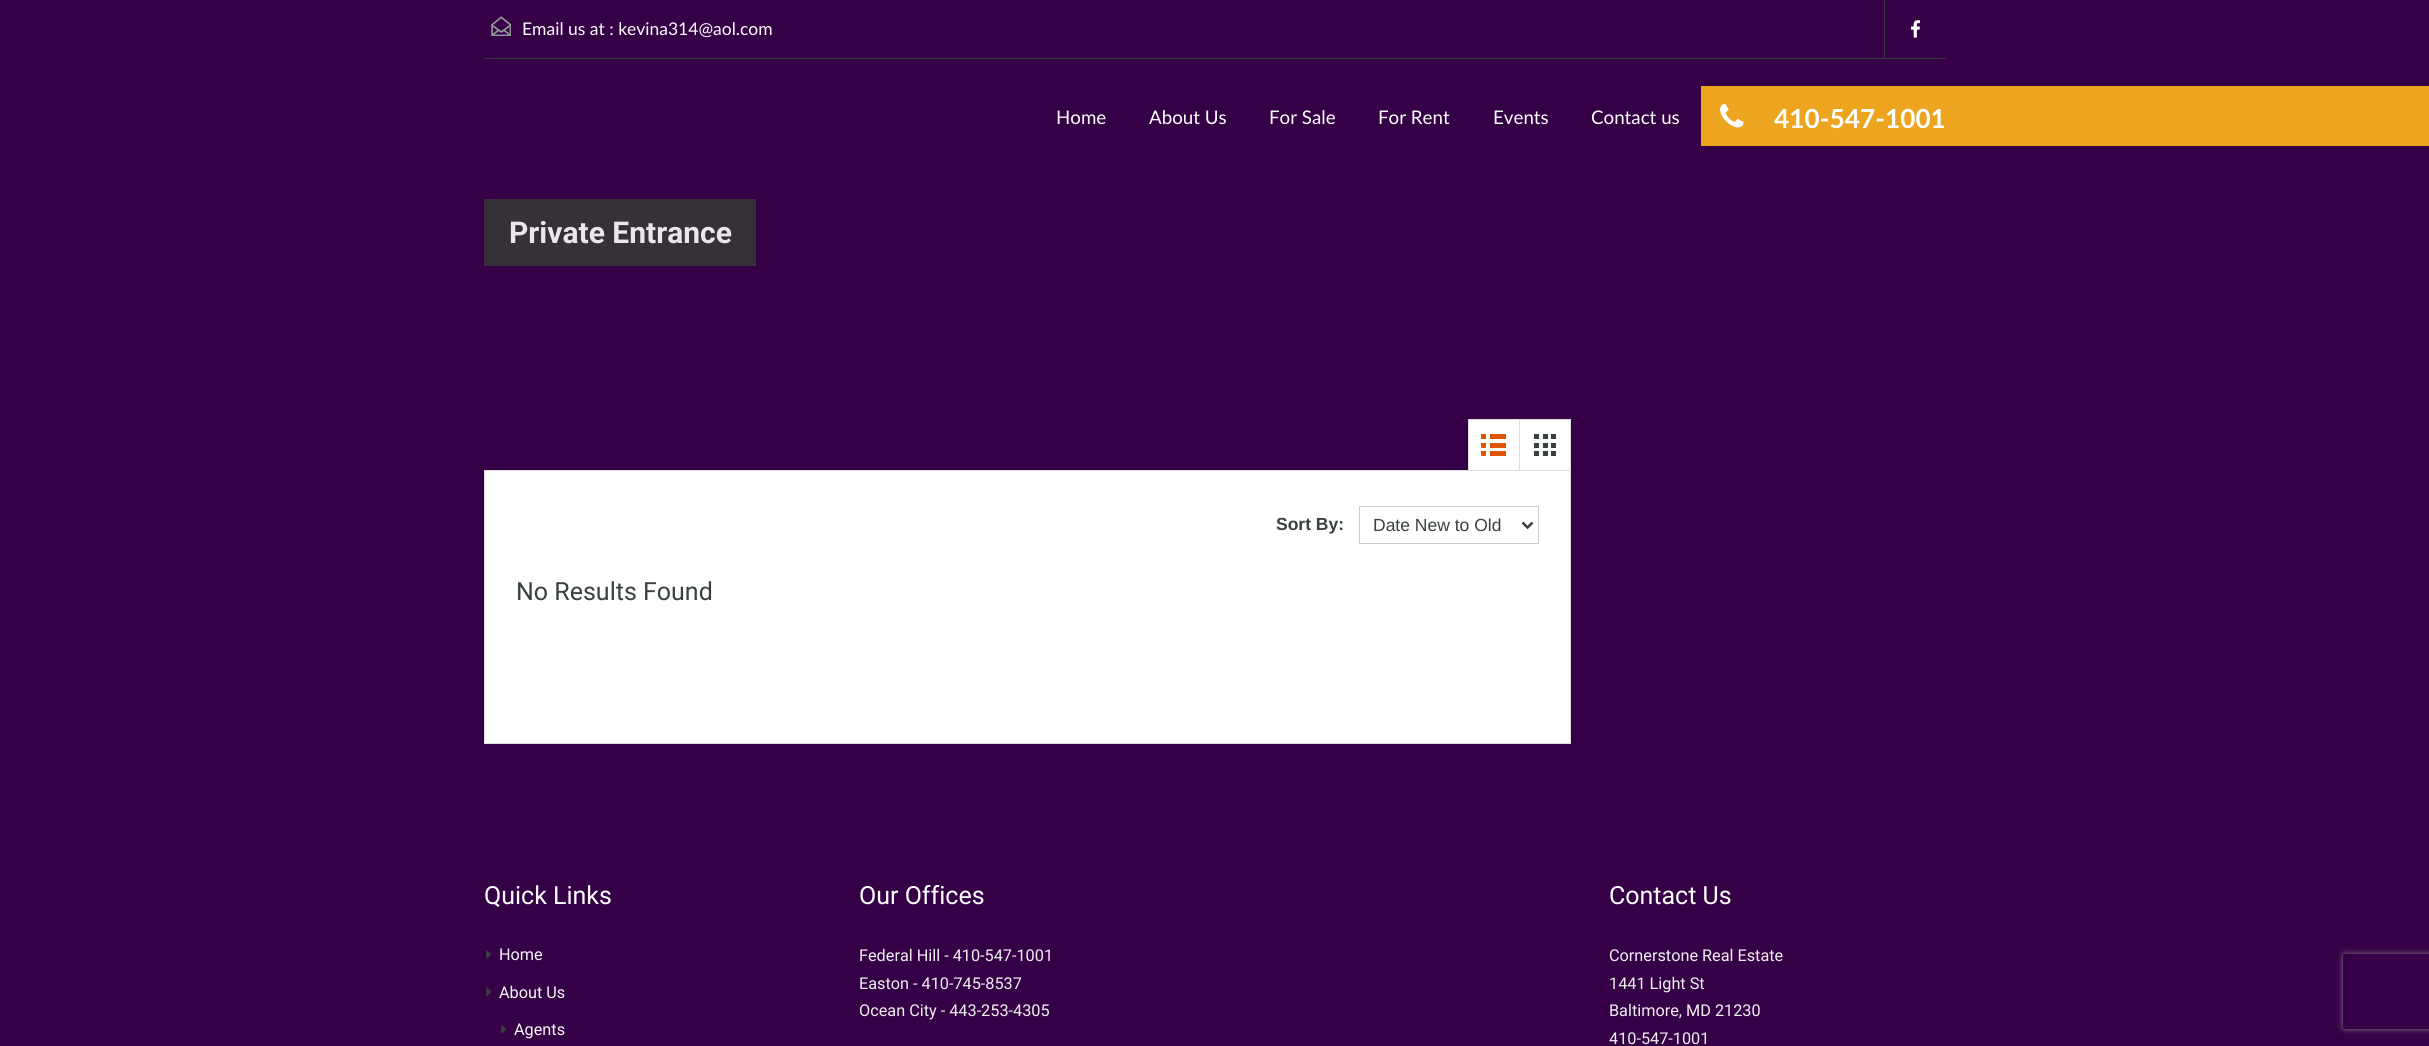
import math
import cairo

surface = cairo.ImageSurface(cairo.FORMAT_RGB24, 2429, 1046)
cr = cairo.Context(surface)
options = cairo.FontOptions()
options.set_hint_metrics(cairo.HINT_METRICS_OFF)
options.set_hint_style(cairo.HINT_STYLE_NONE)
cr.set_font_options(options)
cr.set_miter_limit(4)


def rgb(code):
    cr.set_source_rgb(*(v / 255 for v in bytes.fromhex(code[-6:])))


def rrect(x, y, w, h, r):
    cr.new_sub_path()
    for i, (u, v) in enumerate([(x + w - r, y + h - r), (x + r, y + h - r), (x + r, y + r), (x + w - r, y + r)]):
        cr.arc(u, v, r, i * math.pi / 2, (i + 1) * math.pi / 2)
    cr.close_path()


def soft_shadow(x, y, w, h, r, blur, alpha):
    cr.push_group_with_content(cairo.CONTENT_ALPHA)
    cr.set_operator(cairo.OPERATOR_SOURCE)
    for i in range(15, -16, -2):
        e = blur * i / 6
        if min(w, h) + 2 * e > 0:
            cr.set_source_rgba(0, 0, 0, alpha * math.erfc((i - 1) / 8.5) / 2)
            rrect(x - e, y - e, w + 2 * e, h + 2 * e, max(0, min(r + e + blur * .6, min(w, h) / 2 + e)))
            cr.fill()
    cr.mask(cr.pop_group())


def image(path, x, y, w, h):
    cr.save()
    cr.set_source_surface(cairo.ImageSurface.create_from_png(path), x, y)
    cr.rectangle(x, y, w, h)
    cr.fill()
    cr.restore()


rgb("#360047")
cr.paint()
rgb("#343a3b")
cr.rectangle(484, 58, 1462, 1)
cr.fill()
image("img/1.png", 491, 16, 20, 20)
cr.rectangle(1884, 0, 1, 58)
cr.fill()
image("img/2.png", 1911, 20, 10, 18)
rgb("#eda51f")
cr.rectangle(1701, 86, 728, 60)
cr.fill()
image("img/3.png", 1720, 104, 24, 24)
for x, y, w, h, color in [
    (484, 199, 272, 67, "#363138"),
    (1570, 470, 1, 274, "#dedede"),
    (484, 470, 1, 274, "#dedede"),
    (485, 471, 1085, 272, "#ffffff"),
    (485, 470, 983, 1, "#dedede"),
    (485, 743, 1085, 1, "#dedede"),
]:
    rgb(color)
    cr.rectangle(x, y, w, h)
    cr.fill()
rgb("#ffffff")
cr.rectangle(1468.5, 419.5, 102, 51)
cr.fill_preserve()
rgb("#dedede")
cr.set_line_width(1)
cr.stroke()
cr.rectangle(1519, 420, 1, 50)
cr.fill()
image("img/4.png", 1481, 434, 25, 22)
image("img/5.png", 1534, 434, 22, 22)
cr.rectangle(1359.5, 506.5, 179, 37)
rgb("#cccccc")
cr.stroke()
cr.new_path()
cr.move_to(1522.5, 522.5)
cr.line_to(1527.5, 527.5)
cr.line_to(1532.5, 522.5)
rgb("#394041")
cr.set_line_width(2.5)
cr.stroke()
image("img/6.png", 486, 950, 6, 9)
image("img/7.png", 486, 987, 6, 10)
image("img/8.png", 501, 1025, 6, 9)
cr.save()
cr.set_fill_rule(cairo.FILL_RULE_EVEN_ODD)
cr.new_path()
cr.move_to(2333, 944)
cr.line_to(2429, 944)
cr.line_to(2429, 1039)
cr.line_to(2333, 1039)
cr.close_path()
cr.move_to(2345.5, 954)
cr.line_to(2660.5, 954)
cr.curve_to(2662, 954, 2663, 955, 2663, 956.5)
cr.line_to(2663, 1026.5)
cr.curve_to(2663, 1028, 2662, 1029, 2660.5, 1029)
cr.line_to(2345.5, 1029)
cr.curve_to(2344, 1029, 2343, 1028, 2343, 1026.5)
cr.line_to(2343, 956.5)
cr.curve_to(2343, 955, 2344, 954, 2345.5, 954)
cr.close_path()
cr.clip()
rgb("#808080")
soft_shadow(2343, 954, 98, 75, 2.5, 3, 1)
cr.restore()
cr.select_font_face("Lato")
cr.set_font_size(17.5)
rgb("#ffffff")
cr.move_to(522, 35)
cr.show_text("Email us at : kevina314@aol.com")
cr.set_font_size(18.75)
for x, y, s in [
    (1056, 124, "Home"),
    (1149, 124, "About Us"),
    (1269, 124, "For Sale"),
    (1378, 124, "For Rent"),
    (1493, 124, "Events"),
    (1591, 124, "Contact us"),
]:
    cr.move_to(x, y)
    cr.show_text(s)
cr.select_font_face("Lato", cairo.FONT_SLANT_NORMAL, cairo.FONT_WEIGHT_BOLD)
cr.set_font_size(26.25)
cr.move_to(1774, 128)
cr.show_text("410-547-1001")
cr.select_font_face("Roboto", cairo.FONT_SLANT_NORMAL, cairo.FONT_WEIGHT_BOLD)
cr.set_font_size(30)
rgb("#ebe6ed")
cr.move_to(509, 243)
cr.show_text("Private Entrance")
cr.select_font_face("Liberation Sans", cairo.FONT_SLANT_NORMAL, cairo.FONT_WEIGHT_BOLD)
cr.set_font_size(17.5)
rgb("#394041")
cr.move_to(1276, 530)
cr.show_text("Sort By:")
cr.select_font_face("Liberation Sans")
cr.move_to(1373, 531)
cr.show_text("Date New to Old")
cr.select_font_face("Roboto")
cr.set_font_size(25)
cr.move_to(516, 600)
cr.show_text("No Results Found")
rgb("#ffffff")
cr.move_to(484, 904)
cr.show_text("Quick Links")
cr.set_font_size(16.25)
rgb("#f7f7f7")
for x, y, s in [
    (499, 960, "Home"),
    (499, 998, "About Us"),
    (514, 1035, "Agents"),
]:
    cr.move_to(x, y)
    cr.show_text(s)
cr.set_font_size(25)
rgb("#ffffff")
cr.move_to(859, 904)
cr.show_text("Our Offices")
cr.set_font_size(16.25)
rgb("#f0f0f0")
for x, y, s in [
    (859, 961, "Federal Hill - 410-547-1001"),
    (859, 989, "Easton - 410-745-8537"),
    (859, 1016, "Ocean City - 443-253-4305"),
]:
    cr.move_to(x, y)
    cr.show_text(s)
cr.set_font_size(25)
rgb("#ffffff")
cr.move_to(1609, 904)
cr.show_text("Contact Us")
cr.set_font_size(16.25)
rgb("#f0f0f0")
for x, y, s in [
    (1609, 961, "Cornerstone Real Estate"),
    (1609, 989, "1441 Light St"),
    (1609, 1016, "Baltimore, MD 21230"),
    (1609, 1044, "410-547-1001"),
]:
    cr.move_to(x, y)
    cr.show_text(s)
surface.write_to_png("page.png")
